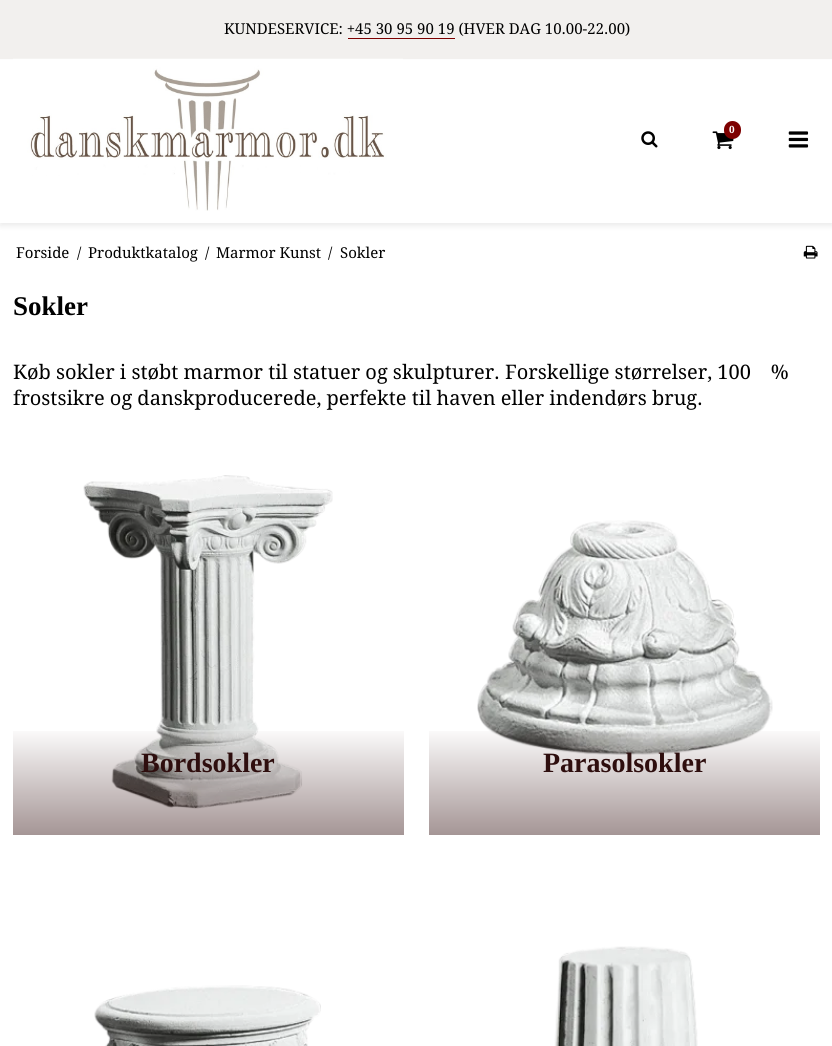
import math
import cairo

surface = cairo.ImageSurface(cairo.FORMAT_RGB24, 832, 1046)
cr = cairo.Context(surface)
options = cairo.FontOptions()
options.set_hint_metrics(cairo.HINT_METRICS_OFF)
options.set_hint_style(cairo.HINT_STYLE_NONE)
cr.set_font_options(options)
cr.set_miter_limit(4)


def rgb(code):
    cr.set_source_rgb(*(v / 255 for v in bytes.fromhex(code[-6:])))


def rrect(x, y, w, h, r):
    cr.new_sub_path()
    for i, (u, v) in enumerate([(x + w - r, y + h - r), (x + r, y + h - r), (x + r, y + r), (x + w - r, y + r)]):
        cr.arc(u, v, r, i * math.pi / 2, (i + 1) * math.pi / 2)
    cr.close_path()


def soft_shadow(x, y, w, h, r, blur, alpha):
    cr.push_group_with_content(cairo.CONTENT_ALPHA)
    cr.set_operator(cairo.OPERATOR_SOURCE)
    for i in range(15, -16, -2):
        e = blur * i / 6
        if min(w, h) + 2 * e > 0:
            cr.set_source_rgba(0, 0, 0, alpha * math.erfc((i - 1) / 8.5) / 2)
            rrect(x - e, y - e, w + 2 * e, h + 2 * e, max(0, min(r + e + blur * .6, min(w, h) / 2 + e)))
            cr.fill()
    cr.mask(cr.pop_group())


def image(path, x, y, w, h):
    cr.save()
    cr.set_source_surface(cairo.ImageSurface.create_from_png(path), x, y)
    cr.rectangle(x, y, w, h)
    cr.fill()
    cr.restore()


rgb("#ffffff")
cr.paint()
rgb("#f2f0ee")
cr.rectangle(0, 0, 832, 59)
cr.fill()
rgb("#7d0000")
cr.rectangle(348, 38, 107, 1)
cr.fill()
rgb("#000000")
soft_shadow(0, 63, 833, 163, 0, 3, 0.08)
rgb("#ffffff")
cr.rectangle(0, 60, 832, 163)
cr.fill()
image("img/1.png", 13, 58, 390, 153)
image("img/2.png", 712, 131, 22, 19)
rgb("#7d0000")
rrect(724, 121, 17, 18, 8.5)
cr.fill()
image("img/3.png", 641, 131, 17, 17)
image("img/4.png", 788, 131, 21, 17)
image("img/5.png", 803, 245, 15, 14)
image("img/6.png", 83, 475, 250, 334)
gradient = cairo.LinearGradient(208, 835, 208, 726)
gradient.add_color_stop_rgba(0, 0.176, 0.035, 0.035, 0.43)
gradient.add_color_stop_rgba(1, 0.176, 0.035, 0.035, 0)
cr.set_source(gradient)
cr.rectangle(13, 731, 391, 104)
cr.fill()
image("img/7.png", 477, 520, 296, 235)
gradient = cairo.LinearGradient(624, 835, 624, 726)
gradient.add_color_stop_rgba(0, 0.176, 0.035, 0.035, 0.43)
gradient.add_color_stop_rgba(1, 0.176, 0.035, 0.035, 0)
cr.set_source(gradient)
cr.rectangle(429, 731, 391, 104)
cr.fill()
image("img/8.png", 94, 985, 227, 61)
image("img/9.png", 554, 946, 144, 100)
cr.select_font_face("Droid Serif")
cr.set_font_size(15)
rgb("#000000")
cr.move_to(224, 34)
cr.show_text("KUNDESERVICE: +45 30 95 90 19 (HVER DAG 10.00-22.00)")
cr.select_font_face("Droid Serif", cairo.FONT_SLANT_NORMAL, cairo.FONT_WEIGHT_BOLD)
cr.set_font_size(10)
rgb("#ffffff")
cr.move_to(729, 133)
cr.show_text("0")
cr.select_font_face("Droid Serif")
cr.set_font_size(15)
rgb("#000000")
for x, y, s in [
    (16, 258, "Forside"),
    (77, 258, "/"),
    (88, 258, "Produktkatalog"),
    (205, 258, "/"),
    (216, 258, "Marmor Kunst"),
    (328, 258, "/"),
    (340, 258, "Sokler"),
]:
    cr.move_to(x, y)
    cr.show_text(s)
cr.select_font_face("Liberation Serif", cairo.FONT_SLANT_NORMAL, cairo.FONT_WEIGHT_BOLD)
cr.set_font_size(27)
cr.move_to(13, 315)
cr.show_text("Sokler")
cr.select_font_face("Droid Serif")
cr.set_font_size(20)
cr.move_to(13, 379)
cr.show_text("Køb sokler i støbt marmor til statuer og skulpturer. Forskellige størrelser, 100 %")
cr.move_to(13, 405)
cr.show_text("frostsikre og danskproducerede, perfekte til haven eller indendørs brug.")
cr.select_font_face("Liberation Serif", cairo.FONT_SLANT_NORMAL, cairo.FONT_WEIGHT_BOLD)
cr.set_font_size(28)
rgb("#2e0e0e")
cr.move_to(141, 772)
cr.show_text("Bordsokler")
cr.move_to(543, 772)
cr.show_text("Parasolsokler")
surface.write_to_png("page.png")
